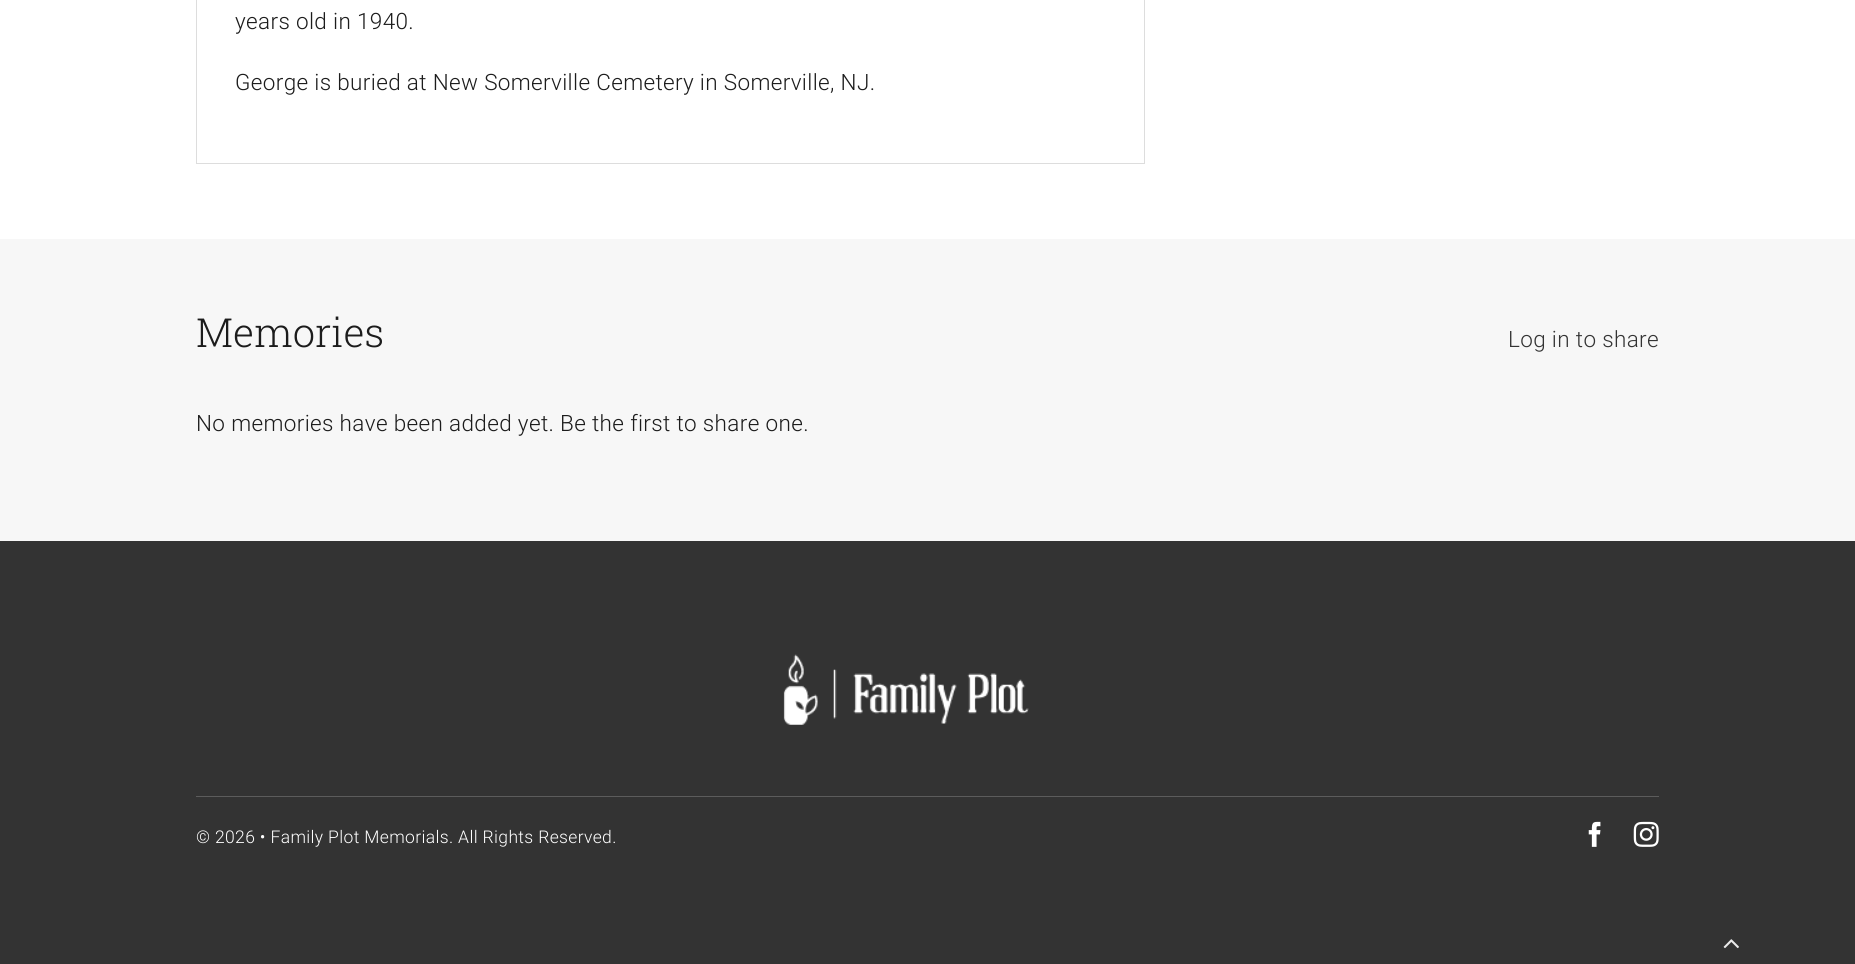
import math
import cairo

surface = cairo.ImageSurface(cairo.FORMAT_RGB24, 1855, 964)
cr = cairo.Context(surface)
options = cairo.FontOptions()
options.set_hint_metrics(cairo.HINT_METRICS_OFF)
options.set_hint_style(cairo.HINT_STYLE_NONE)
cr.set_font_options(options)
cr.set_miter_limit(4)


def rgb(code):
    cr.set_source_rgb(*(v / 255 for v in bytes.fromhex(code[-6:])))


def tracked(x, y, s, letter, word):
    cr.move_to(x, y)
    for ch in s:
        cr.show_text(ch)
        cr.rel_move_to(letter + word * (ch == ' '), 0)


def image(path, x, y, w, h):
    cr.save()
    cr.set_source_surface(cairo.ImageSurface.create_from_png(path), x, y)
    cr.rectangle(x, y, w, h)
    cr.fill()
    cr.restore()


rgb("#ffffff")
cr.paint()
cr.rectangle(196.5, -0.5, 948, 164)
rgb("#dddddd")
cr.set_line_width(1)
cr.stroke()
rgb("#f7f7f7")
cr.rectangle(0, 239, 1855, 302)
cr.fill()
rgb("#333333")
cr.rectangle(0, 541, 1855, 423)
cr.fill()
image("img/1.png", 783, 654, 246, 71)
rgb("#5c5c5c")
cr.rectangle(196, 796, 1463, 1)
cr.fill()
image("img/2.png", 1588, 821, 13, 26)
image("img/3.png", 1633, 821, 26, 26)
image("img/4.png", 1723, 939, 16, 10)
cr.select_font_face("Roboto Light")
cr.set_font_size(22.5)
rgb("#1c1c1c")
tracked(235, 29, "years old in 1940.", 0.35, 0)
tracked(235, 90, "George is buried at New Somerville Cemetery in Somerville, NJ.", 0.35, 0)
cr.select_font_face("Roboto Slab Light")
cr.set_font_size(40)
cr.move_to(196, 347)
cr.show_text("Memories")
cr.select_font_face("Roboto Light")
cr.set_font_size(22.5)
rgb("#333333")
tracked(1508, 347, "Log in to share", 0.35, 0)
rgb("#1c1c1c")
tracked(196, 431, "No memories have been added yet. Be the first to share one.", 0.35, 0)
cr.set_font_size(17.5)
rgb("#ffffff")
tracked(196, 843, "© 2026 • Family Plot Memorials. All Rights Reserved.", 0.35, 0)
surface.write_to_png("page.png")
